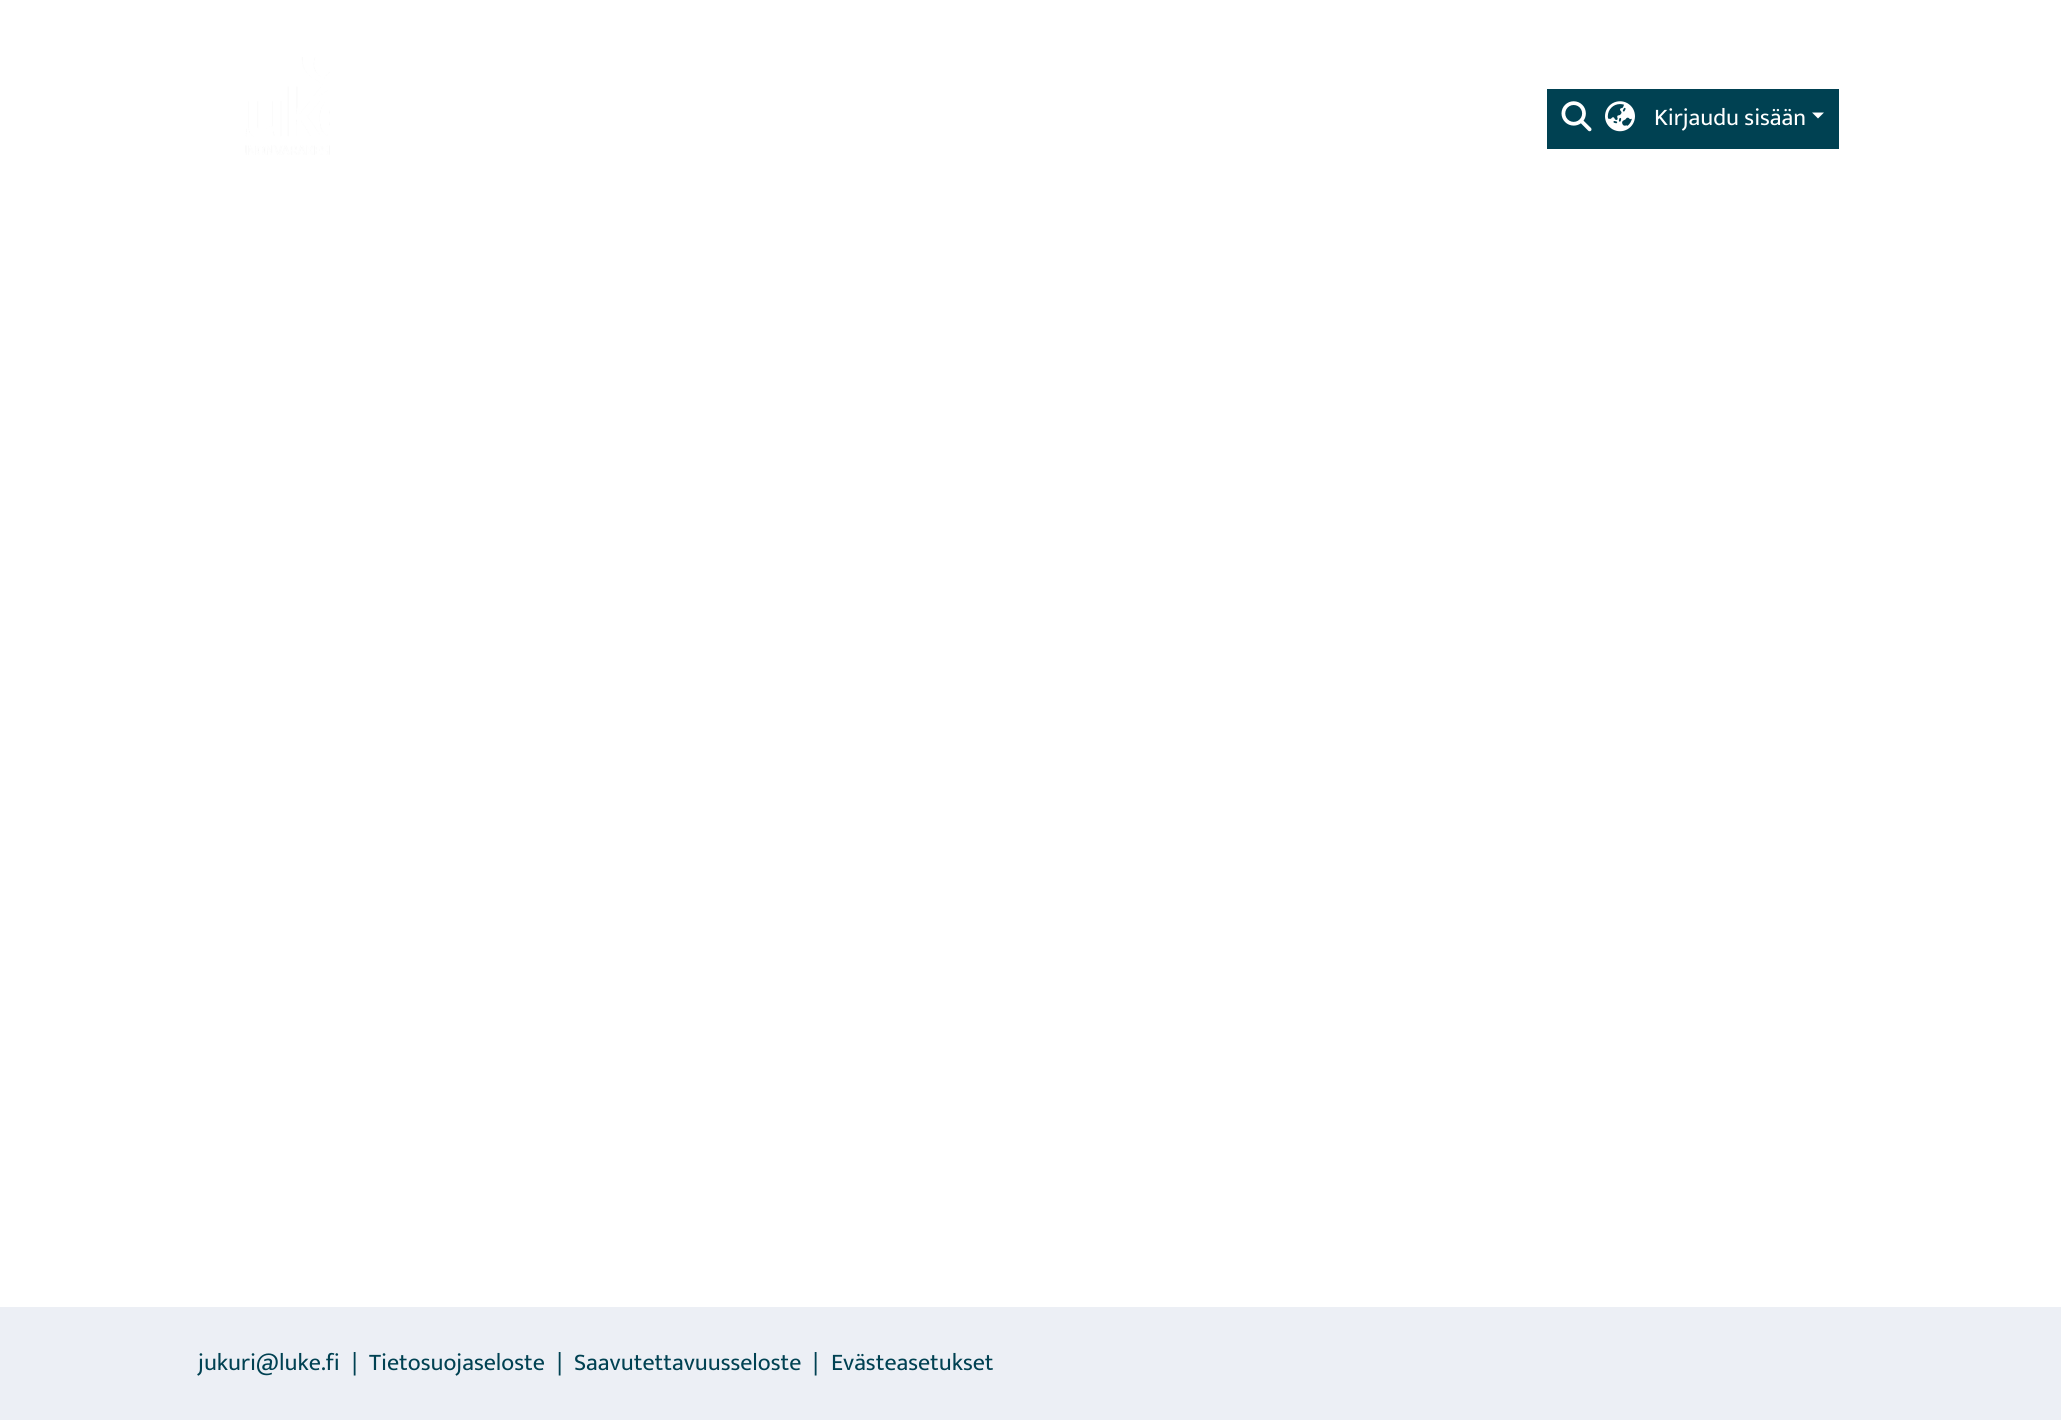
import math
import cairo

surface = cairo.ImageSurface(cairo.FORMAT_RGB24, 2061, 1420)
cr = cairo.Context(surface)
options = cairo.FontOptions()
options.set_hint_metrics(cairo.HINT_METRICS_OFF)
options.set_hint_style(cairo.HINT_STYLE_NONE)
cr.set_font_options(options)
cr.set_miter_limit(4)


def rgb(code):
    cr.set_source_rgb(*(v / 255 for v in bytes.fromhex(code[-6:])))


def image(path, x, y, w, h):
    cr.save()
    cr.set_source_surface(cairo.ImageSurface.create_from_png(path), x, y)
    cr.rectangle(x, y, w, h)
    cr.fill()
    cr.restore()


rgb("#ffffff")
cr.paint()
image("img/1.png", 245, 57, 85, 98)
rgb("#004152")
cr.rectangle(1547, 89, 292, 60)
cr.fill()
image("img/2.png", 1561, 101, 31, 31)
image("img/3.png", 1605, 101, 30, 31)
rgb("#ffffff")
cr.new_path()
cr.move_to(1812, 112.5)
cr.line_to(1824, 112.5)
cr.line_to(1818, 118.5)
cr.close_path()
cr.fill()
rgb("#eceff5")
cr.rectangle(0, 1307, 2061, 113)
cr.fill()
cr.select_font_face("Mukta")
cr.set_font_size(24)
rgb("#ffffff")
cr.move_to(1654, 125)
cr.show_text("Kirjaudu sisään")
rgb("#004152")
for x, y, s in [
    (198, 1370, "jukuri@luke.fi"),
    (352, 1370, "|"),
    (369, 1370, "Tietosuojaseloste"),
    (557, 1370, "|"),
    (574, 1370, "Saavutettavuusseloste"),
    (813, 1370, "|"),
    (831, 1370, "Evästeasetukset"),
]:
    cr.move_to(x, y)
    cr.show_text(s)
surface.write_to_png("page.png")
